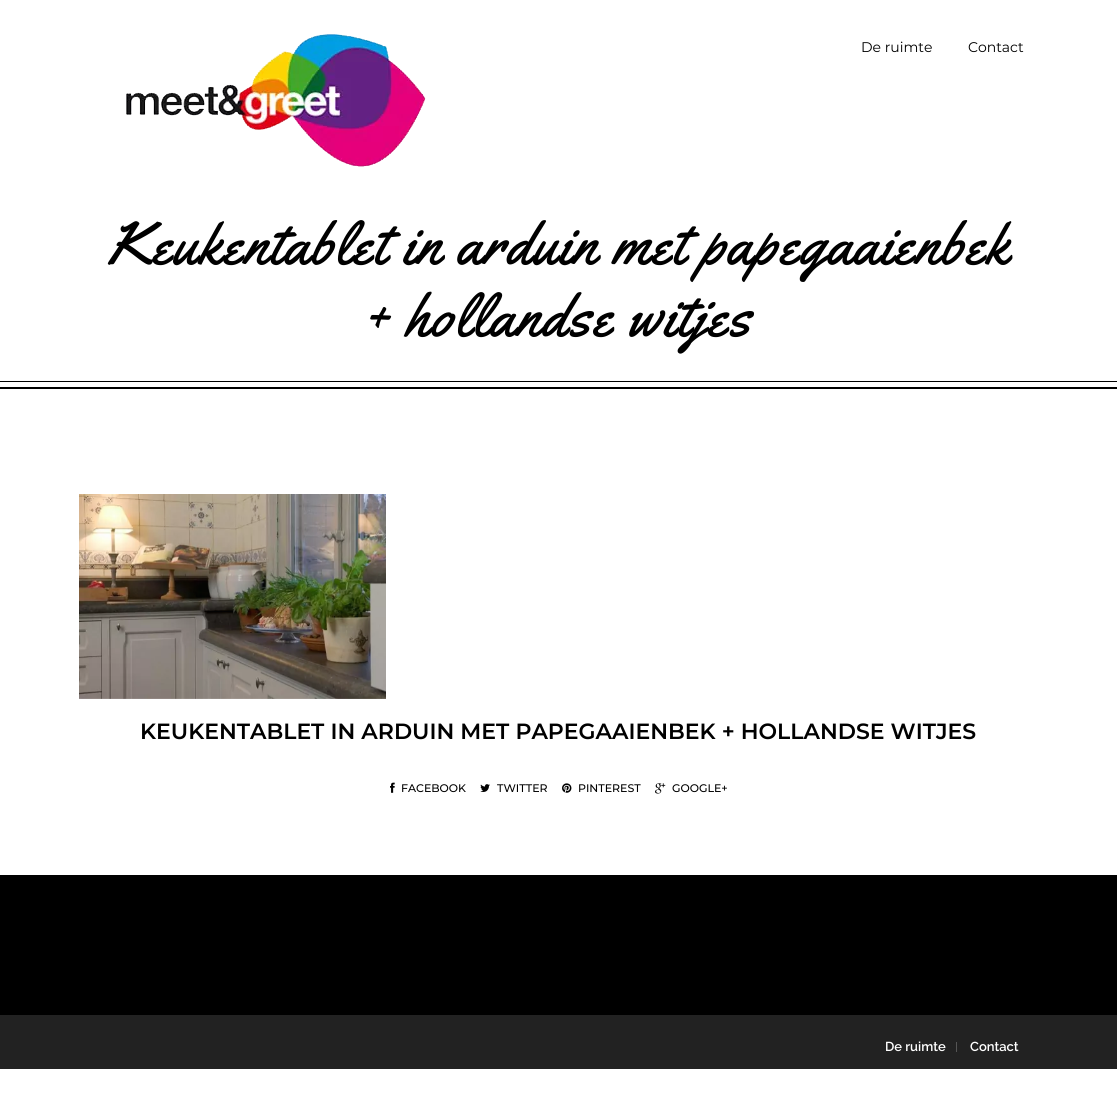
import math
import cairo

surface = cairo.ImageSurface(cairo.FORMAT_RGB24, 1117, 1093)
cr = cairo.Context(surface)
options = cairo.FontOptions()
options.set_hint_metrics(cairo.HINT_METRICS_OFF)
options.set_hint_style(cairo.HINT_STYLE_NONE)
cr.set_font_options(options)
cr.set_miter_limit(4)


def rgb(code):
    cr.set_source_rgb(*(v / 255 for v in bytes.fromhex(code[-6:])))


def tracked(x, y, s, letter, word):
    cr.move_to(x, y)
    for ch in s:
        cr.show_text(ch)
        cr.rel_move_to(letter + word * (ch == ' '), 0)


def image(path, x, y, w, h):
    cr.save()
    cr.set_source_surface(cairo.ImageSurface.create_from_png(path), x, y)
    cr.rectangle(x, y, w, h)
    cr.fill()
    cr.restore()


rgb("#ffffff")
cr.paint()
image("img/1.png", 126, 34, 300, 133)
rgb("#000000")
cr.rectangle(0, 387, 1117, 2)
cr.fill()
cr.rectangle(0, 381, 1117, 1)
cr.fill()
image("img/2.png", 79, 494, 307, 205)
image("img/3.png", 390, 782, 5, 11)
image("img/4.png", 480, 784, 10, 8)
image("img/5.png", 562, 783, 10, 10)
image("img/6.png", 655, 783, 11, 11)
for x, y, w, h, color in [
    (0, 1015, 1117, 54, "#222222"),
    (0, 875, 1117, 140, "#000000"),
    (956, 1042, 1, 10, "#555555"),
]:
    rgb(color)
    cr.rectangle(x, y, w, h)
    cr.fill()
cr.select_font_face("Montserrat")
cr.set_font_size(14)
rgb("#000000")
cr.move_to(861, 52)
cr.show_text("De ruimte")
cr.move_to(968, 52)
cr.show_text("Contact")
cr.select_font_face("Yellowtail")
cr.set_font_size(60)
tracked(107, 264, "Keukentablet in arduin met papegaaienbek", 2, 0)
tracked(364, 336, "+ hollandse witjes", 2, 0)
cr.select_font_face("Montserrat SemiBold")
cr.set_font_size(22)
cr.move_to(140, 739)
cr.show_text("KEUKENTABLET IN ARDUIN MET PAPEGAAIENBEK + HOLLANDSE WITJES")
cr.select_font_face("Montserrat Medium")
cr.set_font_size(11)
for x, y, s in [
    (401, 792, "FACEBOOK"),
    (497, 792, "TWITTER"),
    (578, 792, "PINTEREST"),
    (672, 792, "GOOGLE+"),
]:
    cr.move_to(x, y)
    cr.show_text(s)
cr.select_font_face("Raleway SemiBold")
cr.set_font_size(13)
rgb("#ffffff")
cr.move_to(885, 1051)
cr.show_text("De ruimte")
cr.move_to(970, 1051)
cr.show_text("Contact")
surface.write_to_png("page.png")
